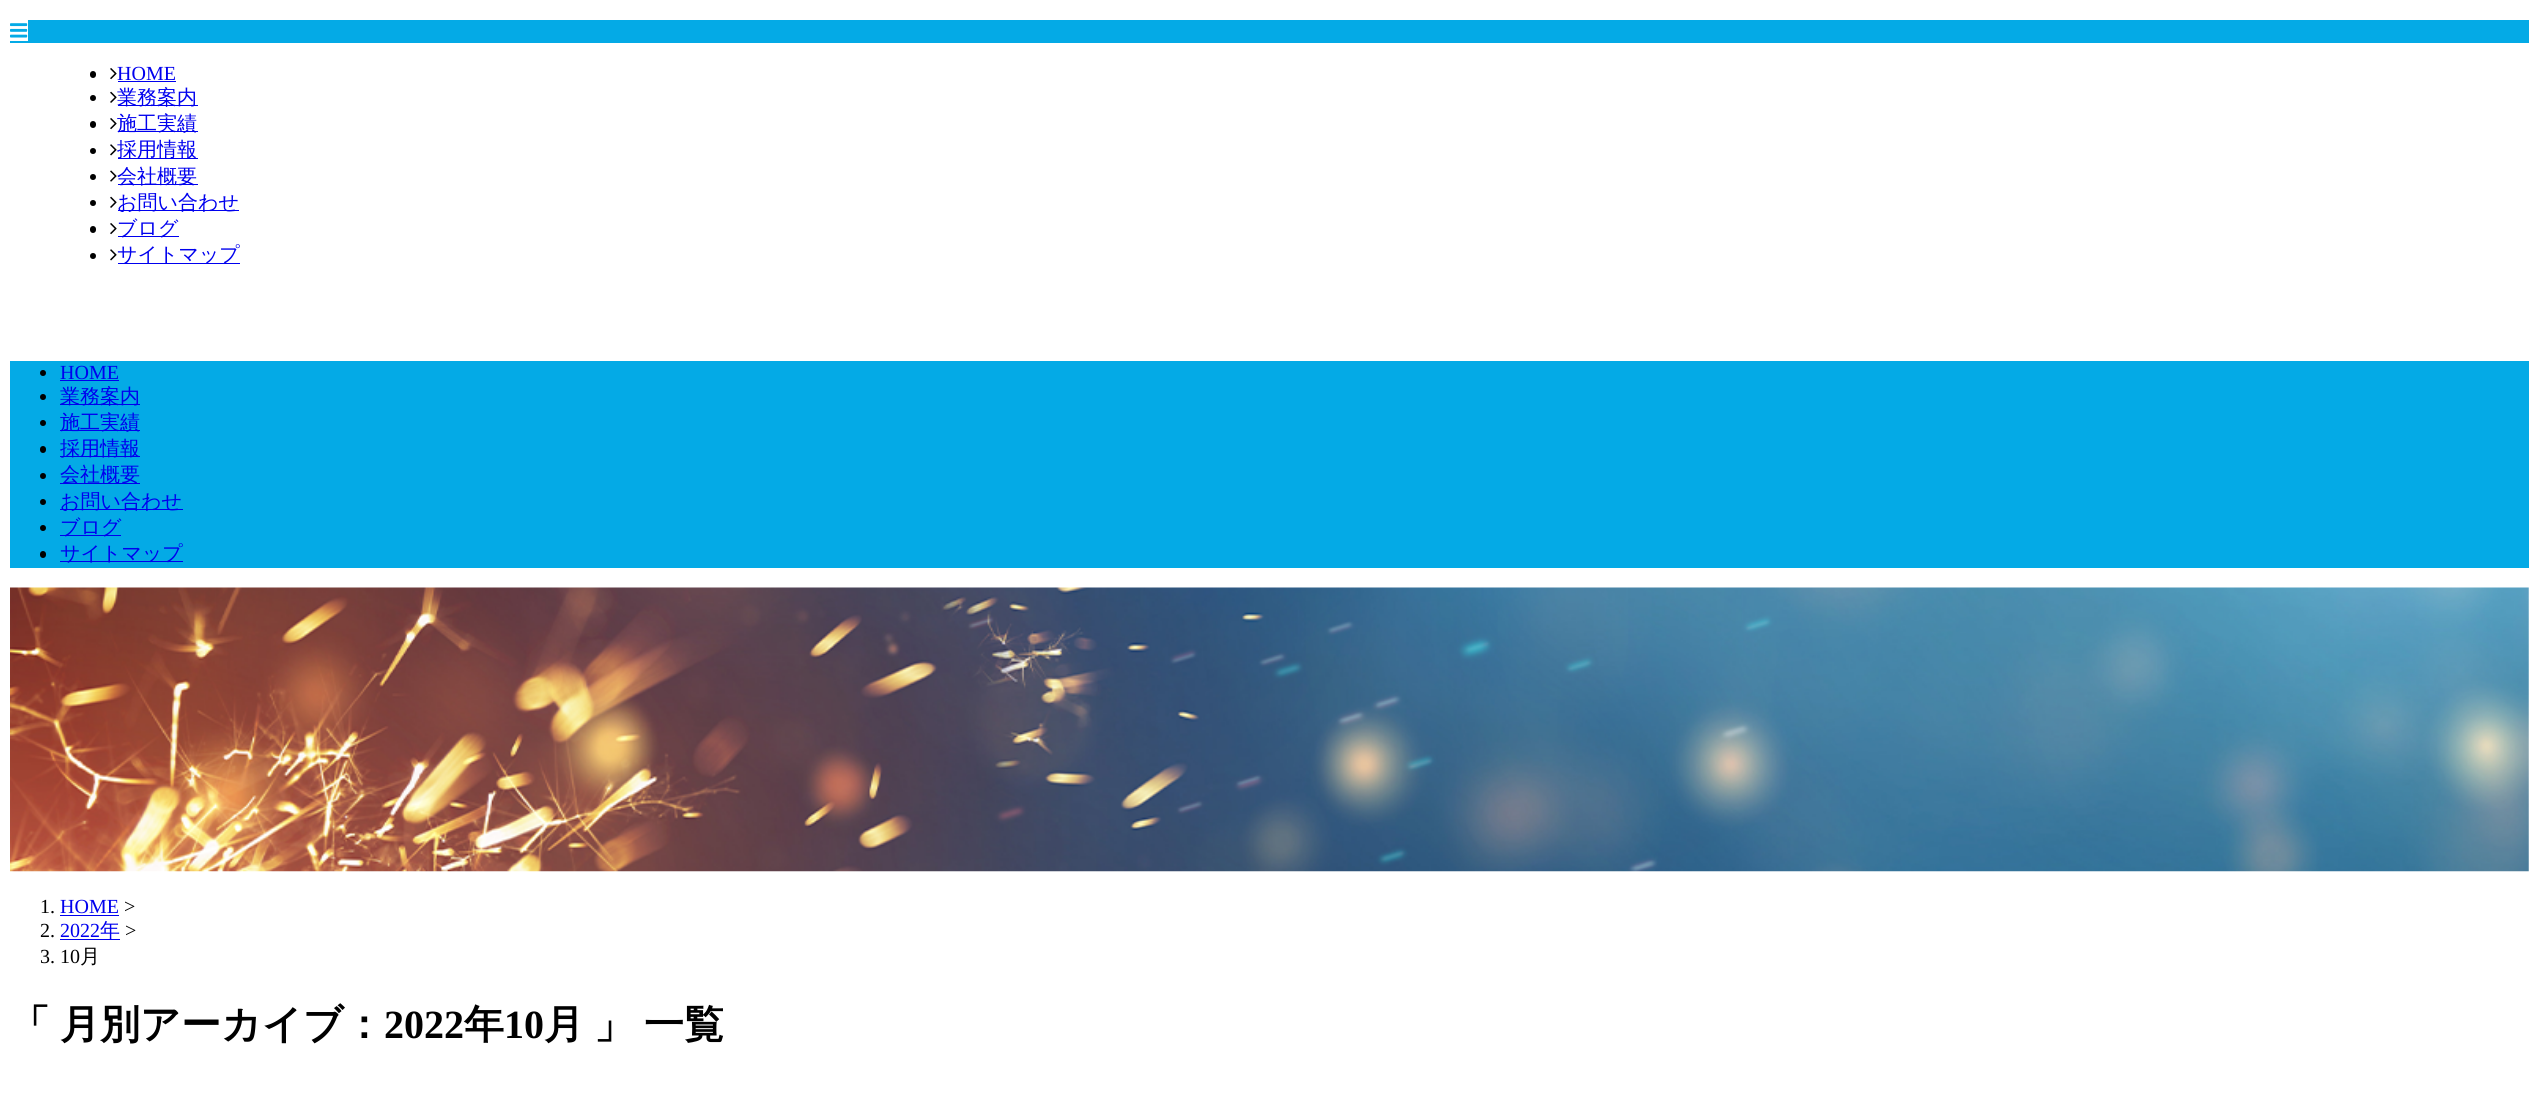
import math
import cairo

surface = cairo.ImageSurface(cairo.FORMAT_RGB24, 2538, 1116)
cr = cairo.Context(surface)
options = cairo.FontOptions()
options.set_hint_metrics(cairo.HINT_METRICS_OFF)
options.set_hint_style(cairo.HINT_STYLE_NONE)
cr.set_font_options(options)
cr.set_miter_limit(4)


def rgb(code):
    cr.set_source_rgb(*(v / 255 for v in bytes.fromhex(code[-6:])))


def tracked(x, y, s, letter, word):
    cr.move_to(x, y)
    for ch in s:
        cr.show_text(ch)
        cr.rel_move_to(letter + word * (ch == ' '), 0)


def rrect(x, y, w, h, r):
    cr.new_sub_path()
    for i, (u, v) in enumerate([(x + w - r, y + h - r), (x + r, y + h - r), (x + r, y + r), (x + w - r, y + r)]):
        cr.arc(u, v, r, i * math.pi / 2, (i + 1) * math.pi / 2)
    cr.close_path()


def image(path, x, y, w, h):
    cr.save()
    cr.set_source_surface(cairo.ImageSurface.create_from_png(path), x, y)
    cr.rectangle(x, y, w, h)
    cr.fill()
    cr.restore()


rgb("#ffffff")
cr.paint()
rgb("#04aae6")
cr.rectangle(10, 20, 2519, 23)
cr.fill()
rgb("#ffffff")
cr.rectangle(10, 20, 18, 21)
cr.fill()
image("img/1.png", 10, 23, 18, 15)
rgb("#000000")
rrect(90, 71, 6, 7, 3)
cr.fill()
image("img/2.png", 110, 68, 7, 12)
rgb("#0000ee")
cr.rectangle(118, 81, 58, 1)
cr.fill()
rgb("#000000")
cr.arc(93, 98, 3, 0, 2 * math.pi)
cr.fill()
image("img/3.png", 110, 91, 7, 12)
rgb("#0000ee")
cr.rectangle(118, 105, 80, 1)
cr.fill()
rgb("#000000")
rrect(90, 121, 6, 7, 3)
cr.fill()
image("img/2.png", 110, 118, 7, 12)
rgb("#0000ee")
cr.rectangle(118, 131, 80, 1)
cr.fill()
rgb("#000000")
cr.arc(93, 151, 3, 0, 2 * math.pi)
cr.fill()
image("img/4.png", 110, 144, 7, 12)
rgb("#0000ee")
cr.rectangle(118, 158, 80, 1)
cr.fill()
rgb("#000000")
cr.arc(93, 177, 3, 0, 2 * math.pi)
cr.fill()
image("img/5.png", 110, 170, 7, 12)
rgb("#0000ee")
cr.rectangle(118, 184, 80, 1)
cr.fill()
rgb("#000000")
cr.arc(93, 203, 3, 0, 2 * math.pi)
cr.fill()
image("img/3.png", 110, 196, 7, 12)
rgb("#0000ee")
cr.rectangle(118, 210, 121, 1)
cr.fill()
rgb("#000000")
rrect(90, 226, 6, 7, 3)
cr.fill()
image("img/2.png", 110, 223, 7, 12)
rgb("#0000ee")
cr.rectangle(118, 236, 61, 1)
cr.fill()
rgb("#000000")
cr.arc(93, 256, 3, 0, 2 * math.pi)
cr.fill()
image("img/4.png", 110, 249, 7, 12)
rgb("#0000ee")
cr.rectangle(118, 263, 122, 1)
cr.fill()
rgb("#04aae6")
cr.rectangle(10, 361, 2519, 207)
cr.fill()
rgb("#000000")
cr.arc(43, 373, 3, 0, 2 * math.pi)
cr.fill()
rgb("#0000ee")
cr.rectangle(60, 380, 59, 1)
cr.fill()
rgb("#000000")
cr.arc(43, 397, 3, 0, 2 * math.pi)
cr.fill()
rgb("#0000ee")
cr.rectangle(60, 404, 80, 1)
cr.fill()
rgb("#000000")
cr.arc(43, 423, 3, 0, 2 * math.pi)
cr.fill()
rgb("#0000ee")
cr.rectangle(60, 430, 80, 1)
cr.fill()
rgb("#000000")
rrect(40, 446, 6, 7, 3)
cr.fill()
rgb("#0000ee")
cr.rectangle(60, 456, 80, 1)
cr.fill()
rgb("#000000")
cr.arc(43, 476, 3, 0, 2 * math.pi)
cr.fill()
rgb("#0000ee")
cr.rectangle(60, 483, 80, 1)
cr.fill()
rgb("#000000")
cr.arc(43, 502, 3, 0, 2 * math.pi)
cr.fill()
rgb("#0000ee")
cr.rectangle(60, 509, 123, 1)
cr.fill()
rgb("#000000")
cr.arc(43, 528, 3, 0, 2 * math.pi)
cr.fill()
rgb("#0000ee")
cr.rectangle(60, 535, 61, 1)
cr.fill()
rgb("#000000")
rrect(40, 551, 6, 7, 3)
cr.fill()
rgb("#0000ee")
cr.rectangle(60, 561, 123, 1)
cr.fill()
image("img/6.png", 10, 587, 2519, 285)
cr.rectangle(60, 915, 59, 1)
cr.fill()
cr.rectangle(60, 939, 60, 1)
cr.fill()
cr.select_font_face("Liberation Serif")
cr.set_font_size(20)
cr.move_to(117, 80)
cr.show_text("HOME")
cr.select_font_face("WenQuanYi Zen Hei Medium")
for x, y, s in [
    (117, 104, "業務案内"),
    (117, 130, "施工実績"),
    (117, 156, "採用情報"),
    (117, 183, "会社概要"),
    (117, 209, "お問い合わせ"),
    (117, 235, "ブログ"),
    (117, 261, "サイトマップ"),
]:
    cr.move_to(x, y)
    cr.show_text(s)
cr.select_font_face("Liberation Serif")
cr.move_to(60, 379)
cr.show_text("HOME")
cr.select_font_face("WenQuanYi Zen Hei Medium")
for x, y, s in [
    (60, 403, "業務案内"),
    (60, 429, "施工実績"),
    (60, 455, "採用情報"),
    (60, 481, "会社概要"),
    (60, 508, "お問い合わせ"),
    (60, 534, "ブログ"),
    (60, 560, "サイトマップ"),
]:
    cr.move_to(x, y)
    cr.show_text(s)
cr.select_font_face("Liberation Serif")
rgb("#000000")
cr.move_to(40, 913)
cr.show_text("1.")
rgb("#0000ee")
cr.move_to(60, 913)
cr.show_text("HOME")
rgb("#000000")
cr.move_to(124, 913)
cr.show_text(">")
cr.move_to(40, 937)
cr.show_text("2.")
rgb("#0000ee")
cr.move_to(60, 937)
cr.show_text("2022")
cr.select_font_face("WenQuanYi Zen Hei Medium")
cr.move_to(100, 937)
cr.show_text("年")
cr.select_font_face("Liberation Serif")
rgb("#000000")
cr.move_to(125, 937)
cr.show_text(">")
cr.move_to(40, 963)
cr.show_text("3. 10")
cr.select_font_face("WenQuanYi Zen Hei Medium")
cr.move_to(80, 963)
cr.show_text("月")
cr.select_font_face("WenQuanYi Zen Hei", cairo.FONT_SLANT_NORMAL, cairo.FONT_WEIGHT_BOLD)
cr.set_font_size(40)
cr.move_to(10, 1038)
cr.show_text("「")
cr.move_to(60, 1038)
cr.show_text("月別アーカイブ：")
cr.select_font_face("Liberation Serif", cairo.FONT_SLANT_NORMAL, cairo.FONT_WEIGHT_BOLD)
cr.move_to(384, 1038)
cr.show_text("2022")
cr.select_font_face("WenQuanYi Zen Hei", cairo.FONT_SLANT_NORMAL, cairo.FONT_WEIGHT_BOLD)
cr.move_to(464, 1038)
cr.show_text("年")
cr.select_font_face("Liberation Serif", cairo.FONT_SLANT_NORMAL, cairo.FONT_WEIGHT_BOLD)
cr.move_to(504, 1038)
cr.show_text("10")
cr.select_font_face("WenQuanYi Zen Hei", cairo.FONT_SLANT_NORMAL, cairo.FONT_WEIGHT_BOLD)
cr.move_to(544, 1038)
cr.show_text("月")
tracked(594, 1038, "」 一覧", 0, -2)
surface.write_to_png("page.png")
